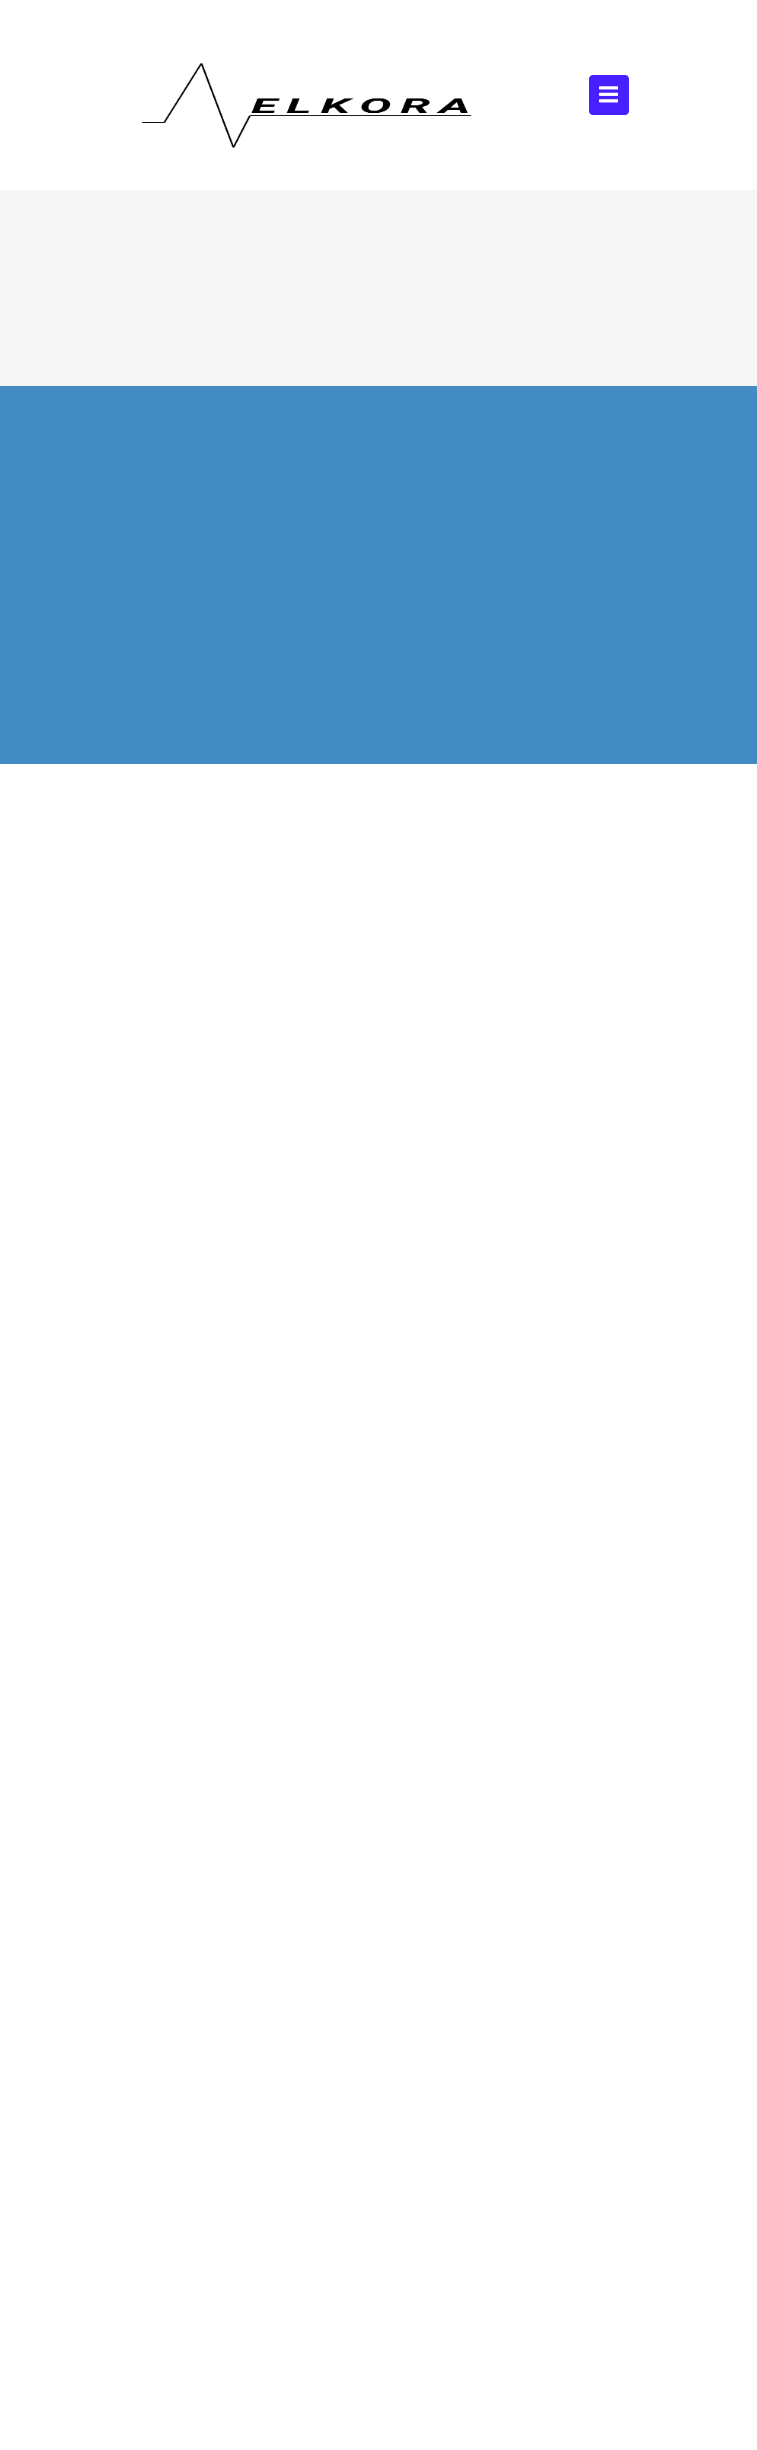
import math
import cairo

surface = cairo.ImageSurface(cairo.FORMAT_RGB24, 757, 2450)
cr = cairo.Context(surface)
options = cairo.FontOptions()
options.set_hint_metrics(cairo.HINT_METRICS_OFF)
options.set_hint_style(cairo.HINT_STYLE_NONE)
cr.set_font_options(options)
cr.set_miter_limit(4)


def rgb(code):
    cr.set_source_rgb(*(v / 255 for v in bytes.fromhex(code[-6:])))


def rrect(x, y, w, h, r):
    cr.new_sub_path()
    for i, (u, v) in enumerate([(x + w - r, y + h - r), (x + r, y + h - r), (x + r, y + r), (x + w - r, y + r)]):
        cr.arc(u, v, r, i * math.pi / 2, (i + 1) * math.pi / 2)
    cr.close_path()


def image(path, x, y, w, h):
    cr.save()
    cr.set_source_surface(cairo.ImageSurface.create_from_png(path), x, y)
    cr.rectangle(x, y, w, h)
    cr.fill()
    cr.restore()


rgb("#ffffff")
cr.paint()
image("img/1.png", 141, 63, 331, 85)
rgb("#481fff")
rrect(589, 75, 40, 40, 4)
cr.fill()
image("img/2.png", 599, 86, 19, 17)
rgb("#f8f7f7")
cr.rectangle(0, 190, 757, 196)
cr.fill()
rgb("#438bc3")
cr.rectangle(0, 386, 757, 378)
cr.fill()
surface.write_to_png("page.png")
